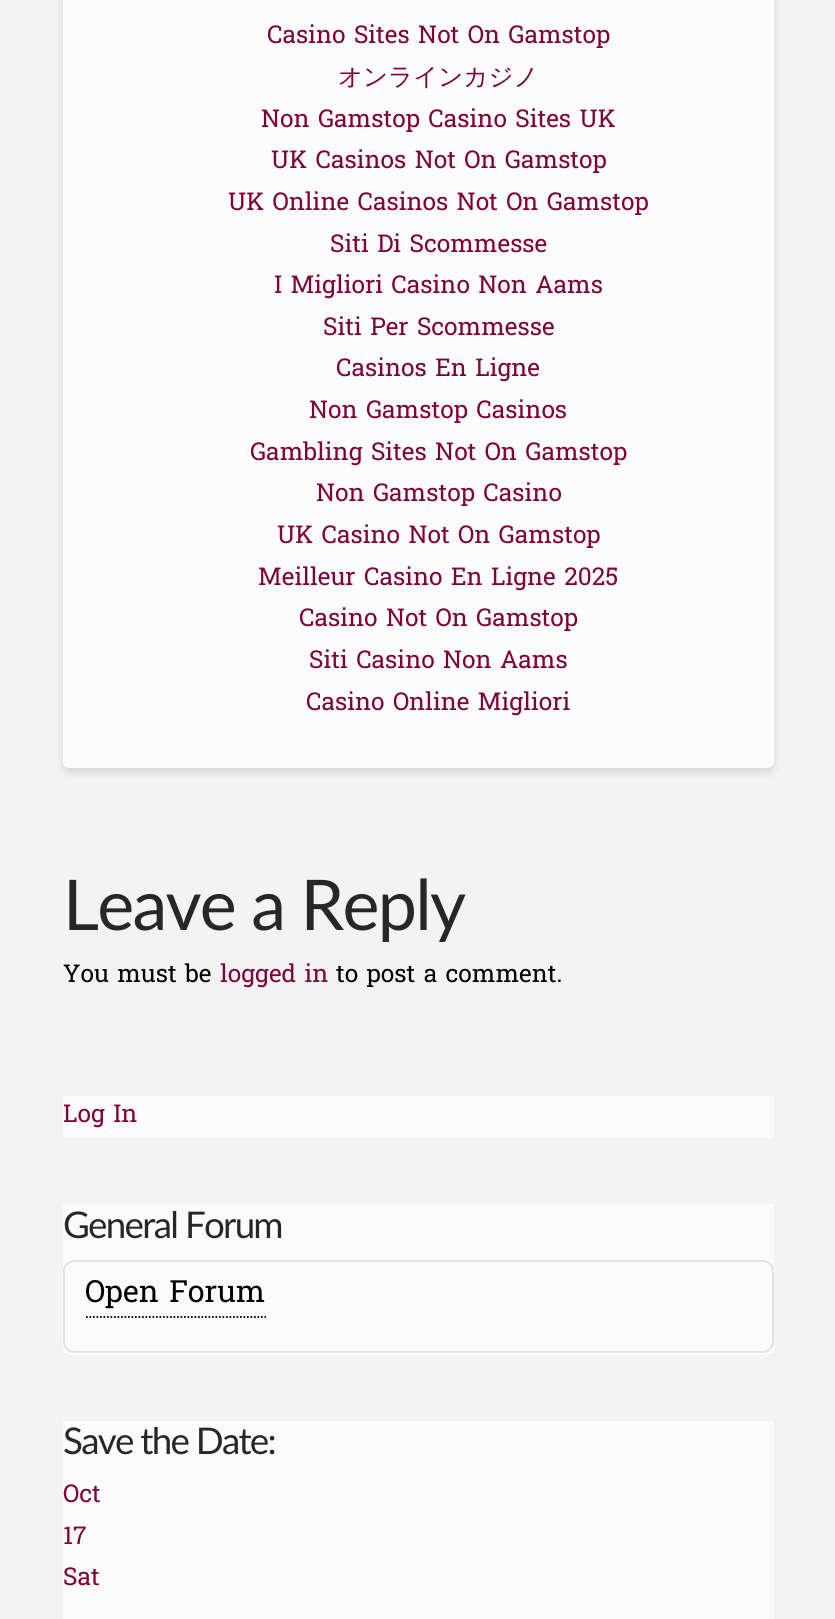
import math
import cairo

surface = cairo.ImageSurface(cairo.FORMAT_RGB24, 835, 1619)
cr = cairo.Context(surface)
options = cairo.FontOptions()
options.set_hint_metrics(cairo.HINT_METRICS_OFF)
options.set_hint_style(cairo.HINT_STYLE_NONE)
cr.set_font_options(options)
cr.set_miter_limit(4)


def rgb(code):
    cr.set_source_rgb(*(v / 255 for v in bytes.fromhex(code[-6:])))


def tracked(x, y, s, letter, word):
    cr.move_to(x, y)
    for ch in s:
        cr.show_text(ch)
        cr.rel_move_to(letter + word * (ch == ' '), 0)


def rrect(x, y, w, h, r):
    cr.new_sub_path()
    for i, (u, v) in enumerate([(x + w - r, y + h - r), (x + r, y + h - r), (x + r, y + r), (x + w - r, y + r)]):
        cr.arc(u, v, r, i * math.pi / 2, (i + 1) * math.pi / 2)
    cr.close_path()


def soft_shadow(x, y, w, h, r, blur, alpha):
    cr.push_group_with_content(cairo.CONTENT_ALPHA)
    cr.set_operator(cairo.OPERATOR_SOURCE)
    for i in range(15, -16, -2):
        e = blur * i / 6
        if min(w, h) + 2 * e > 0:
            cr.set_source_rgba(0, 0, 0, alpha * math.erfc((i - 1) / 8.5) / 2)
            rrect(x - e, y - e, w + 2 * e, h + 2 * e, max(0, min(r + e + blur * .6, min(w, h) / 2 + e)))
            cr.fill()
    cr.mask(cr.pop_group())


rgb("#f3f3f3")
cr.paint()
cr.save()
cr.set_fill_rule(cairo.FILL_RULE_EVEN_ODD)
cr.new_path()
cr.move_to(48, 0)
cr.line_to(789, 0)
cr.line_to(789, 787)
cr.line_to(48, 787)
cr.close_path()
cr.move_to(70, -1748)
cr.line_to(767, -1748)
cr.curve_to(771, -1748, 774, -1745, 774, -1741)
cr.line_to(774, 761)
cr.curve_to(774, 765, 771, 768, 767, 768)
cr.line_to(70, 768)
cr.curve_to(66, 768, 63, 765, 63, 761)
cr.line_to(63, -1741)
cr.curve_to(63, -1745, 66, -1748, 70, -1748)
cr.close_path()
cr.clip()
rgb("#000000")
soft_shadow(63, -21, 711, 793, 7, 4.5, 0.13)
cr.restore()
cr.set_source_rgba(1, 1, 1, 0.72)
rrect(63, -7, 711, 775, 7)
cr.fill()
rgb("#fbfbfb")
cr.rectangle(63, 1096, 711, 42)
cr.fill()
cr.rectangle(63, 1204, 711, 149)
cr.fill()
cr.save()
cr.set_fill_rule(cairo.FILL_RULE_EVEN_ODD)
cr.new_path()
cr.move_to(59, 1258)
cr.line_to(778, 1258)
cr.line_to(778, 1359)
cr.line_to(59, 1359)
cr.close_path()
cr.move_to(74, 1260)
cr.line_to(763, 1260)
cr.curve_to(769, 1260, 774, 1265, 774, 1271)
cr.line_to(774, 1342)
cr.curve_to(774, 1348, 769, 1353, 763, 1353)
cr.line_to(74, 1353)
cr.curve_to(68, 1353, 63, 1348, 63, 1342)
cr.line_to(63, 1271)
cr.curve_to(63, 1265, 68, 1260, 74, 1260)
cr.close_path()
cr.clip()
rgb("#ffffff")
soft_shadow(63, 1262, 711, 93, 11, 1, 0.95)
cr.restore()
rrect(64, 1261, 709, 91, 10)
rgb("#e2e2e2")
cr.stroke()
cr.new_path()
cr.move_to(86, 1317)
cr.line_to(266, 1317)
rgb("#000000")
cr.set_line_width(1.8)
cr.set_dash([1.75, 1.75])
cr.stroke()
rgb("#fbfbfb")
cr.rectangle(63, 1421, 711, 198)
cr.fill()
cr.select_font_face("Hanuman")
cr.set_font_size(24.5)
rgb("#7f0137")
cr.move_to(267, 43)
cr.show_text("Casino Sites Not On Gamstop")
cr.select_font_face("WenQuanYi Zen Hei Medium")
cr.move_to(338, 85)
cr.show_text("オンラインカジノ")
cr.select_font_face("Hanuman")
for x, y, s in [
    (261, 127, "Non Gamstop Casino Sites UK"),
    (271, 168, "UK Casinos Not On Gamstop"),
    (228, 210, "UK Online Casinos Not On Gamstop"),
    (330, 252, "Siti Di Scommesse"),
    (274, 293, "I Migliori Casino Non Aams"),
    (323, 335, "Siti Per Scommesse"),
    (336, 376, "Casinos En Ligne"),
    (309, 418, "Non Gamstop Casinos"),
    (250, 460, "Gambling Sites Not On Gamstop"),
    (316, 501, "Non Gamstop Casino"),
    (277, 543, "UK Casino Not On Gamstop"),
    (258, 585, "Meilleur Casino En Ligne 2025"),
    (299, 626, "Casino Not On Gamstop"),
    (309, 668, "Siti Casino Non Aams"),
    (306, 710, "Casino Online Migliori"),
]:
    cr.move_to(x, y)
    cr.show_text(s)
cr.select_font_face("Lato")
cr.set_font_size(70)
rgb("#272727")
tracked(63, 930, "Leave a Reply", -1.75, 0)
cr.select_font_face("Hanuman")
cr.set_font_size(24.5)
rgb("#000000")
cr.move_to(63, 982)
cr.show_text("You must be")
rgb("#7f0137")
cr.move_to(220, 982)
cr.show_text("logged in")
rgb("#000000")
cr.move_to(336, 982)
cr.show_text("to post a comment.")
rgb("#7f0137")
cr.move_to(63, 1122)
cr.show_text("Log In")
cr.select_font_face("Lato")
cr.set_font_size(36.75)
rgb("#272727")
tracked(63, 1238, "General Forum", -1.75, 0)
cr.select_font_face("Hanuman")
cr.set_font_size(30.5)
rgb("#000000")
cr.move_to(85, 1302)
cr.show_text("Open Forum")
cr.select_font_face("Lato")
cr.set_font_size(36.75)
rgb("#272727")
tracked(63, 1454, "Save the Date:", -1.75, 0)
cr.select_font_face("Hanuman")
cr.set_font_size(24.5)
rgb("#7f0137")
for x, y, s in [
    (63, 1502, "Oct"),
    (63, 1544, "17"),
    (63, 1585, "Sat"),
]:
    cr.move_to(x, y)
    cr.show_text(s)
surface.write_to_png("page.png")
